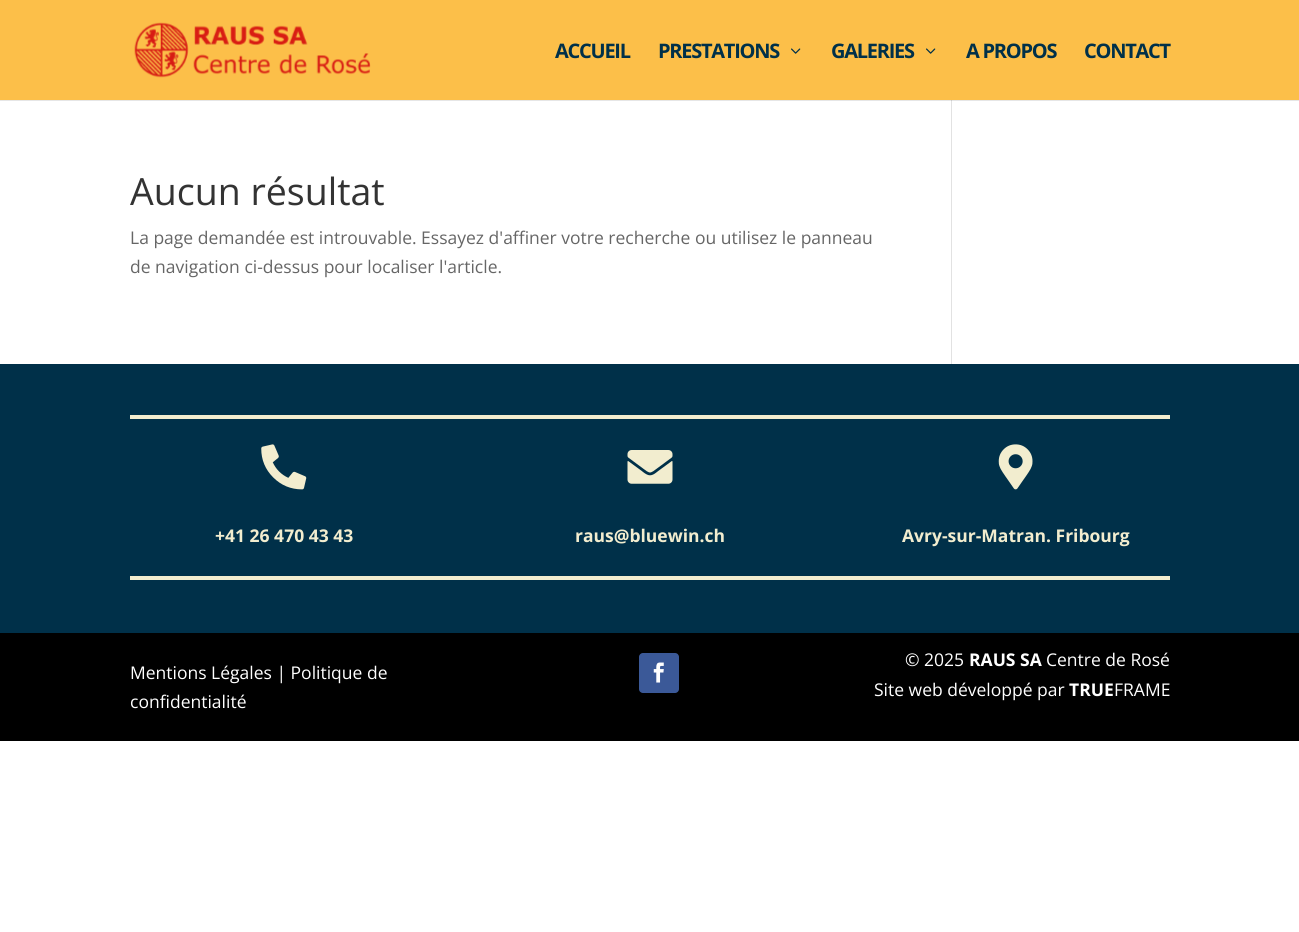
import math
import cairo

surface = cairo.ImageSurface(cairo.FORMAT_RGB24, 1299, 932)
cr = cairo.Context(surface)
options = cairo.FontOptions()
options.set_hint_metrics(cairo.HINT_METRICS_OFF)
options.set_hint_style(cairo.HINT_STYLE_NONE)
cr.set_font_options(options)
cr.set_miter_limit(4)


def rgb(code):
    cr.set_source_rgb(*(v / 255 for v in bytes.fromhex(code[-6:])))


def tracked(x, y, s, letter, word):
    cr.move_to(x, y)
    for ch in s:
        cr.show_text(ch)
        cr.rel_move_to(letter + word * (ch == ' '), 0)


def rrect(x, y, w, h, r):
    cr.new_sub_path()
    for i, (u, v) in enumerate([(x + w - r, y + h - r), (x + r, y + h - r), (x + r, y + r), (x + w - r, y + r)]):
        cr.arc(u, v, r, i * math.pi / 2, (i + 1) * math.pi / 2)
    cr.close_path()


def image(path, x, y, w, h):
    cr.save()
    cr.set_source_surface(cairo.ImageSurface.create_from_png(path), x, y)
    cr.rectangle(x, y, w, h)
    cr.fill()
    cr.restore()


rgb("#ffffff")
cr.paint()
rgb("#e6e6e6")
cr.rectangle(0, 100, 1299, 1)
cr.fill()
rgb("#fcbf49")
cr.rectangle(0, 0, 1299, 100)
cr.fill()
image("img/1.png", 134, 22, 237, 56)
image("img/2.png", 791, 48, 10, 6)
image("img/2.png", 926, 48, 10, 6)
for x, y, w, h, color in [
    (951, 100, 1, 264, "#e2e2e2"),
    (951, 100, 1, 1, "#cbcbcb"),
    (0, 364, 1299, 269, "#003049"),
    (130, 415, 1040, 4, "#f2edcf"),
    (130, 576, 1040, 4, "#f2edcf"),
]:
    rgb(color)
    cr.rectangle(x, y, w, h)
    cr.fill()
image("img/3.png", 261, 444, 46, 46)
image("img/4.png", 627, 450, 46, 34)
image("img/5.png", 998, 444, 35, 46)
rgb("#000000")
cr.rectangle(0, 633, 1299, 108)
cr.fill()
rgb("#3b5998")
rrect(639, 653, 40, 40, 4)
cr.fill()
image("img/6.png", 653, 662, 11, 21)
cr.select_font_face("Open Sans", cairo.FONT_SLANT_NORMAL, cairo.FONT_WEIGHT_BOLD)
cr.set_font_size(20)
rgb("#003049")
for x, y, s in [
    (555, 58, "ACCUEIL"),
    (658, 58, "PRESTATIONS"),
    (831, 58, "GALERIES"),
    (966, 58, "A PROPOS"),
    (1084, 58, "CONTACT"),
]:
    tracked(x, y, s, -1.25, 0)
cr.select_font_face("Open Sans")
cr.set_font_size(37.5)
rgb("#333333")
cr.move_to(130, 205)
cr.show_text("Aucun résultat")
cr.set_font_size(17.5)
rgb("#666666")
cr.move_to(130, 244)
cr.show_text("La page demandée est introuvable. Essayez d'affiner votre recherche ou utilisez le panneau")
cr.move_to(130, 273)
cr.show_text("de navigation ci-dessus pour localiser l'article.")
cr.select_font_face("Open Sans", cairo.FONT_SLANT_NORMAL, cairo.FONT_WEIGHT_BOLD)
rgb("#f2edcf")
for x, y, s in [
    (215, 542, "+41 26 470 43 43"),
    (575, 542, "raus@bluewin.ch"),
    (902, 542, "Avry-sur-Matran. Fribourg"),
]:
    cr.move_to(x, y)
    cr.show_text(s)
cr.select_font_face("Open Sans")
rgb("#ffffff")
for x, y, s in [
    (130, 679, "Mentions Légales | Politique de"),
    (130, 708, "confidentialité"),
    (905, 666, "© 2025"),
]:
    cr.move_to(x, y)
    cr.show_text(s)
cr.select_font_face("Open Sans", cairo.FONT_SLANT_NORMAL, cairo.FONT_WEIGHT_BOLD)
cr.move_to(969, 666)
cr.show_text("RAUS SA")
cr.select_font_face("Open Sans")
cr.move_to(1046, 666)
cr.show_text("Centre de Rosé")
cr.move_to(874, 696)
cr.show_text("Site web développé par")
cr.select_font_face("Open Sans", cairo.FONT_SLANT_NORMAL, cairo.FONT_WEIGHT_BOLD)
cr.move_to(1069, 696)
cr.show_text("TRUE")
cr.select_font_face("Open Sans")
cr.move_to(1114, 696)
cr.show_text("FRAME")
surface.write_to_png("page.png")
